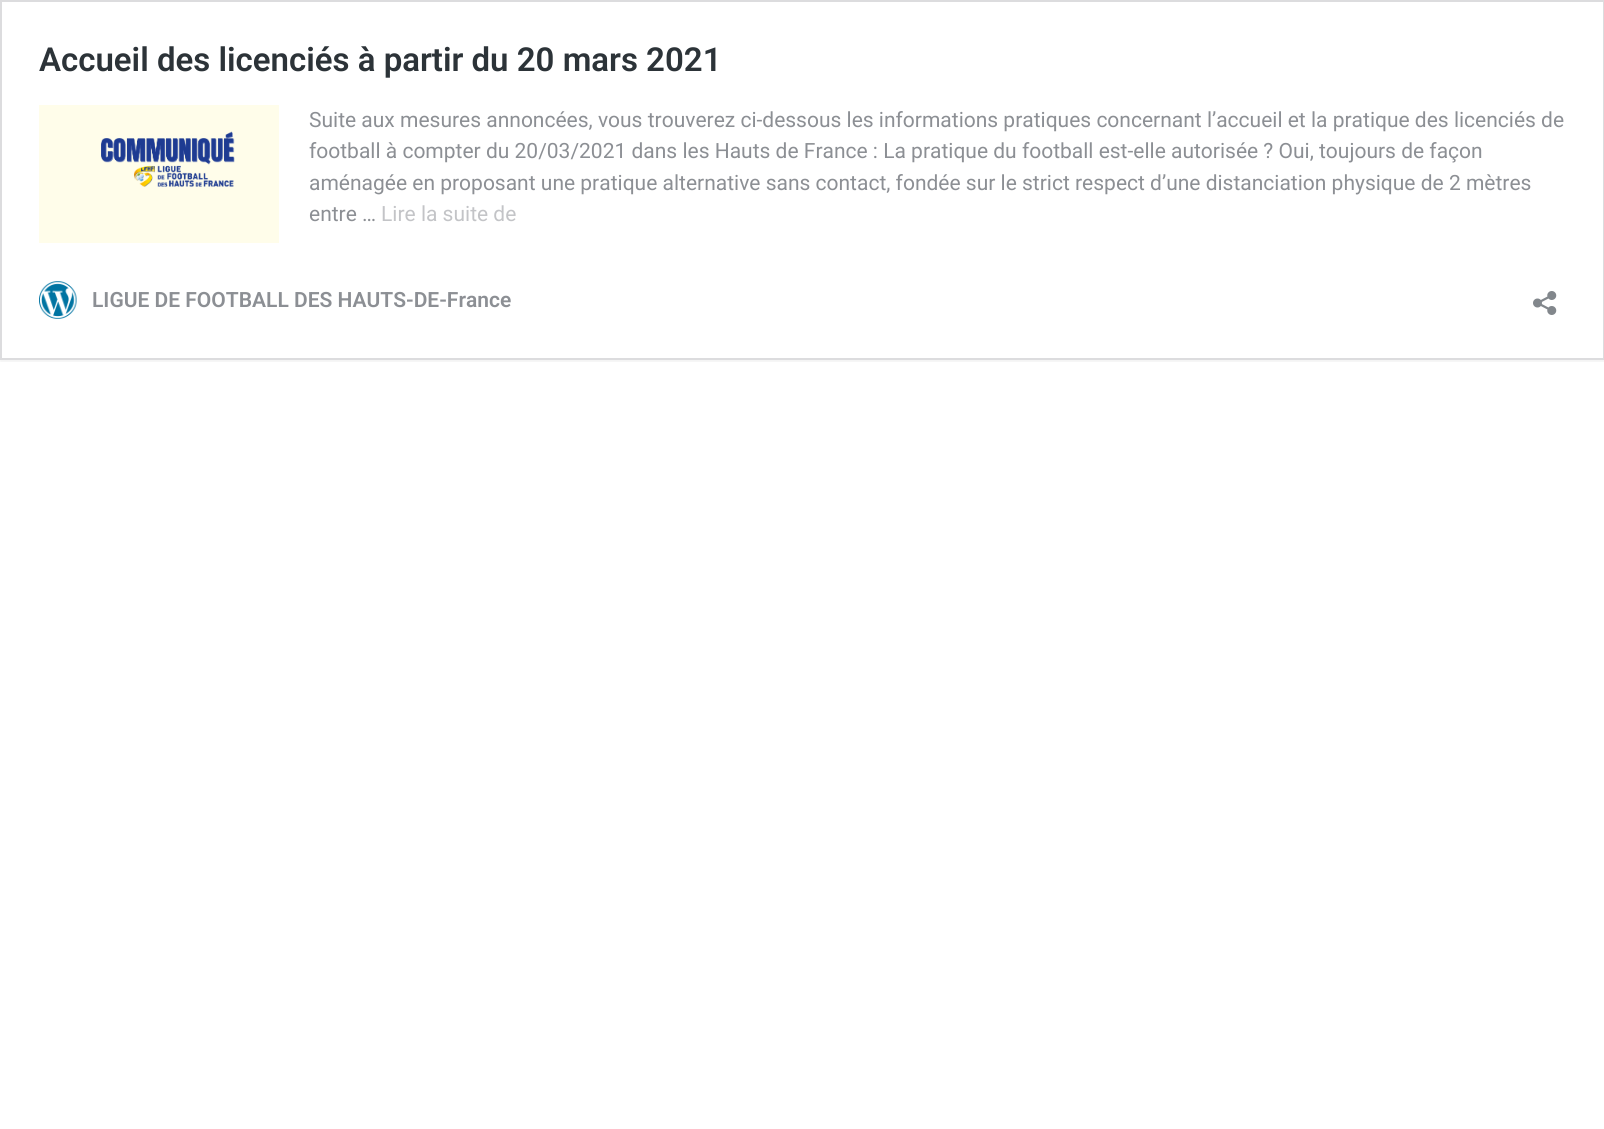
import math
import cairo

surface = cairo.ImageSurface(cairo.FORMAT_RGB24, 1604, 1129)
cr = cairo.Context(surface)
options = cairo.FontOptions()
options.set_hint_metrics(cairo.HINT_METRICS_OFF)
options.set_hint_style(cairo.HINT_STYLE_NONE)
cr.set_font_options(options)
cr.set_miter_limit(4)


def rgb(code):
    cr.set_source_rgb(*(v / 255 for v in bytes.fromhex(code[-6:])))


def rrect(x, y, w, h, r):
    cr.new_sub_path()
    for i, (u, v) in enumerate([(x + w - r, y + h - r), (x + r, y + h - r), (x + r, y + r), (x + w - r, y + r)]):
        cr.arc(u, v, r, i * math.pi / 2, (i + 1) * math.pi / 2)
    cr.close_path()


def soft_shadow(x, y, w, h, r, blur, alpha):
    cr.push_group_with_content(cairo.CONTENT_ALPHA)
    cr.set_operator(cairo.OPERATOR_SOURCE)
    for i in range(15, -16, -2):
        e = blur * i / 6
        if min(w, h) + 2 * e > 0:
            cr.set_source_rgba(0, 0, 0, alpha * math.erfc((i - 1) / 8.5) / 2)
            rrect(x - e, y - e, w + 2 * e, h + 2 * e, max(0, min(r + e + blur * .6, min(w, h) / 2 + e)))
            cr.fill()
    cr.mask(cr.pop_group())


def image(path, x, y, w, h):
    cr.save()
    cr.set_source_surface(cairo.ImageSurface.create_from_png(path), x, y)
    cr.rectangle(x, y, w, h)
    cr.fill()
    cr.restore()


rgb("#ffffff")
cr.paint()
cr.save()
cr.rectangle(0, 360, 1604, 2)
cr.clip()
rgb("#000000")
soft_shadow(0, 2, 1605, 360, 0, 1, 0.05)
cr.restore()
cr.rectangle(1, 1, 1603, 358)
rgb("#dcdcde")
cr.stroke()
image("img/1.png", 39, 105, 240, 138)
image("img/2.png", 39, 281, 38, 38)
image("img/3.png", 1533, 291, 24, 24)
cr.select_font_face("Roboto SemiBold")
cr.set_font_size(33)
rgb("#2c3338")
cr.move_to(39, 71)
cr.show_text("Accueil des licenciés à partir du 20 mars 2021")
cr.select_font_face("Roboto")
cr.set_font_size(21)
rgb("#8c8f94")
for x, y, s in [
    (309, 127, "Suite aux mesures annoncées, vous trouverez ci-dessous les informations pratiques concernant l’accueil et la pratique des licenciés de"),
    (309, 158, "football à compter du 20/03/2021 dans les Hauts de France : La pratique du football est-elle autorisée ? Oui, toujours de façon"),
    (309, 190, "aménagée en proposant une pratique alternative sans contact, fondée sur le strict respect d’une distanciation physique de 2 mètres"),
    (309, 221, "entre …"),
]:
    cr.move_to(x, y)
    cr.show_text(s)
rgb("#c3c4c7")
cr.move_to(381, 221)
cr.show_text("Lire la suite de")
cr.select_font_face("Roboto SemiBold")
rgb("#8c8f94")
cr.move_to(92, 307)
cr.show_text("LIGUE DE FOOTBALL DES HAUTS-DE-France")
surface.write_to_png("page.png")
